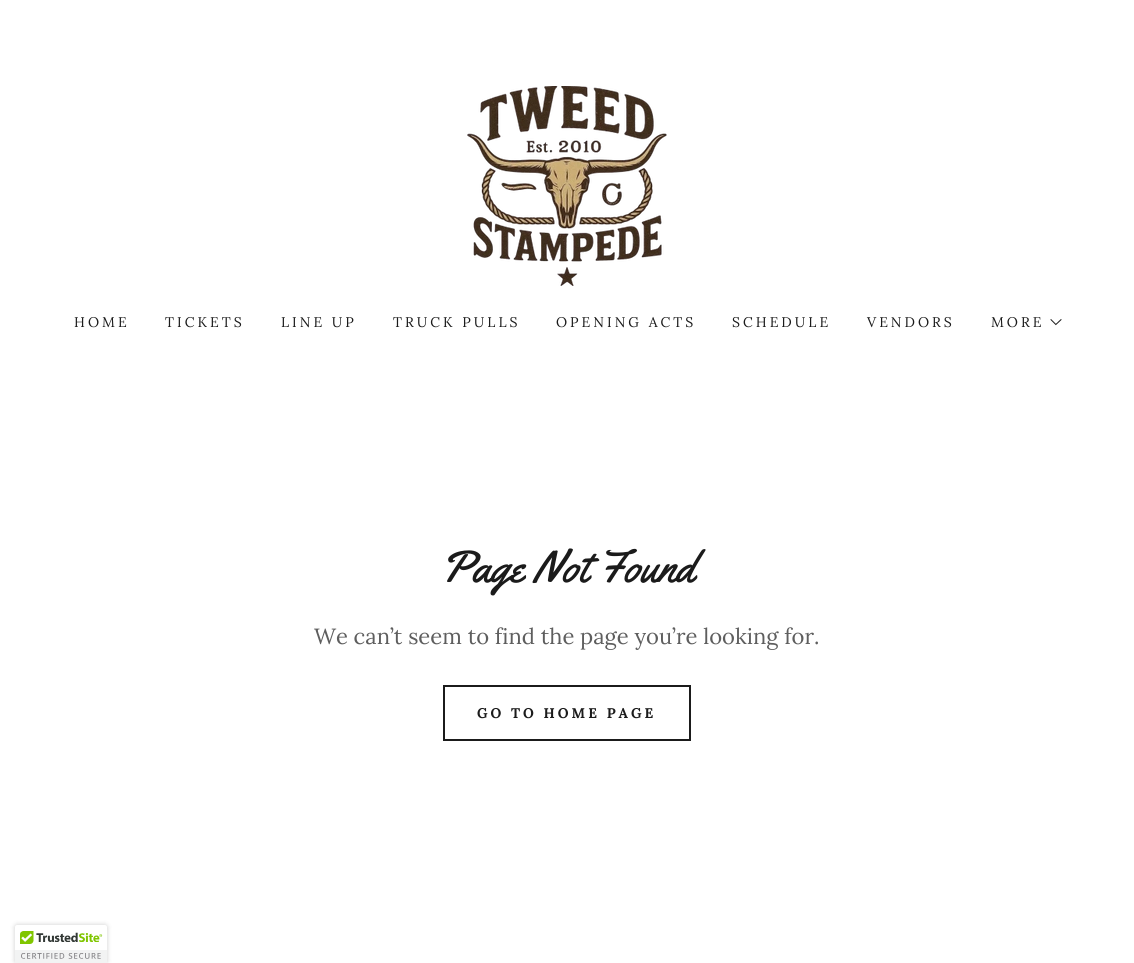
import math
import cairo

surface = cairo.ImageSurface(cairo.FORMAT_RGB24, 1134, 963)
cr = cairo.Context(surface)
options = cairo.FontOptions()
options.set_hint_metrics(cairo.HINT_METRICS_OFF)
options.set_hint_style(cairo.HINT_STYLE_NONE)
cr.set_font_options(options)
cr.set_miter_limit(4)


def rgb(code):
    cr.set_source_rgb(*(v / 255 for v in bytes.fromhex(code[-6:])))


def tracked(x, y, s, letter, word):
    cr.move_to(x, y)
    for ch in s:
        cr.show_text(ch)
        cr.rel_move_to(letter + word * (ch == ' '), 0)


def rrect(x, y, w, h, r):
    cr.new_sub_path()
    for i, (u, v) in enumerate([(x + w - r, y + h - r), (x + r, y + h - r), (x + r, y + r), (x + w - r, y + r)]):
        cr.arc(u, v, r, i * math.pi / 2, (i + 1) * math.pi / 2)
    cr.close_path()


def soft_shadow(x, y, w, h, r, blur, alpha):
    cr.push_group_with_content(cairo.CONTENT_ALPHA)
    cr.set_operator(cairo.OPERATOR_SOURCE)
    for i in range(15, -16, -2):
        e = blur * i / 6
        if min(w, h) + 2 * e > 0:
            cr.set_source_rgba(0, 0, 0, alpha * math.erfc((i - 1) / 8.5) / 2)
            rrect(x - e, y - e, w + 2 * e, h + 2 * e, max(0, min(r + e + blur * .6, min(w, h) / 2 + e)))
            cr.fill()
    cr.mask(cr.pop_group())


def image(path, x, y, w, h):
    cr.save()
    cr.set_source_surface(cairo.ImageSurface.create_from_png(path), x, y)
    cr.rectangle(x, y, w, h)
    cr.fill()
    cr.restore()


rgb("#ffffff")
cr.paint()
image("img/1.png", 467, 86, 200, 200)
image("img/2.png", 1050, 319, 12, 7)
cr.rectangle(444, 686, 246, 54)
rgb("#1b1b1b")
cr.stroke()
rgb("#000000")
soft_shadow(15, 925, 92, 38, 2, 2.5, 0.2)
rgb("#ffffff")
cr.new_path()
cr.move_to(17, 925)
cr.line_to(105, 925)
cr.curve_to(106, 925, 107, 926, 107, 927)
cr.line_to(107, 963)
cr.line_to(15, 963)
cr.line_to(15, 927)
cr.curve_to(15, 926, 16, 925, 17, 925)
cr.close_path()
cr.fill()
image("img/3.png", 15, 931, 92, 32)
cr.select_font_face("Lora")
cr.set_font_size(14)
rgb("#1b1b1b")
for x, y, s in [
    (74, 327, "HOME"),
    (165, 327, "TICKETS"),
    (281, 327, "LINE UP"),
    (393, 327, "TRUCK PULLS"),
    (556, 327, "OPENING ACTS"),
    (732, 327, "SCHEDULE"),
    (867, 327, "VENDORS"),
    (991, 327, "MORE"),
]:
    tracked(x, y, s, 3, 0)
cr.select_font_face("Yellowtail")
cr.set_font_size(45)
cr.move_to(440, 582)
cr.show_text("Page Not Found")
cr.select_font_face("Lora")
cr.set_font_size(22)
rgb("#5e5e5e")
cr.move_to(314, 644)
cr.show_text("We can’t seem to find the page you’re looking for.")
cr.select_font_face("Lora", cairo.FONT_SLANT_NORMAL, cairo.FONT_WEIGHT_BOLD)
cr.set_font_size(14)
rgb("#1b1b1b")
tracked(477, 718, "GO TO HOME PAGE", 3, 0)
surface.write_to_png("page.png")
